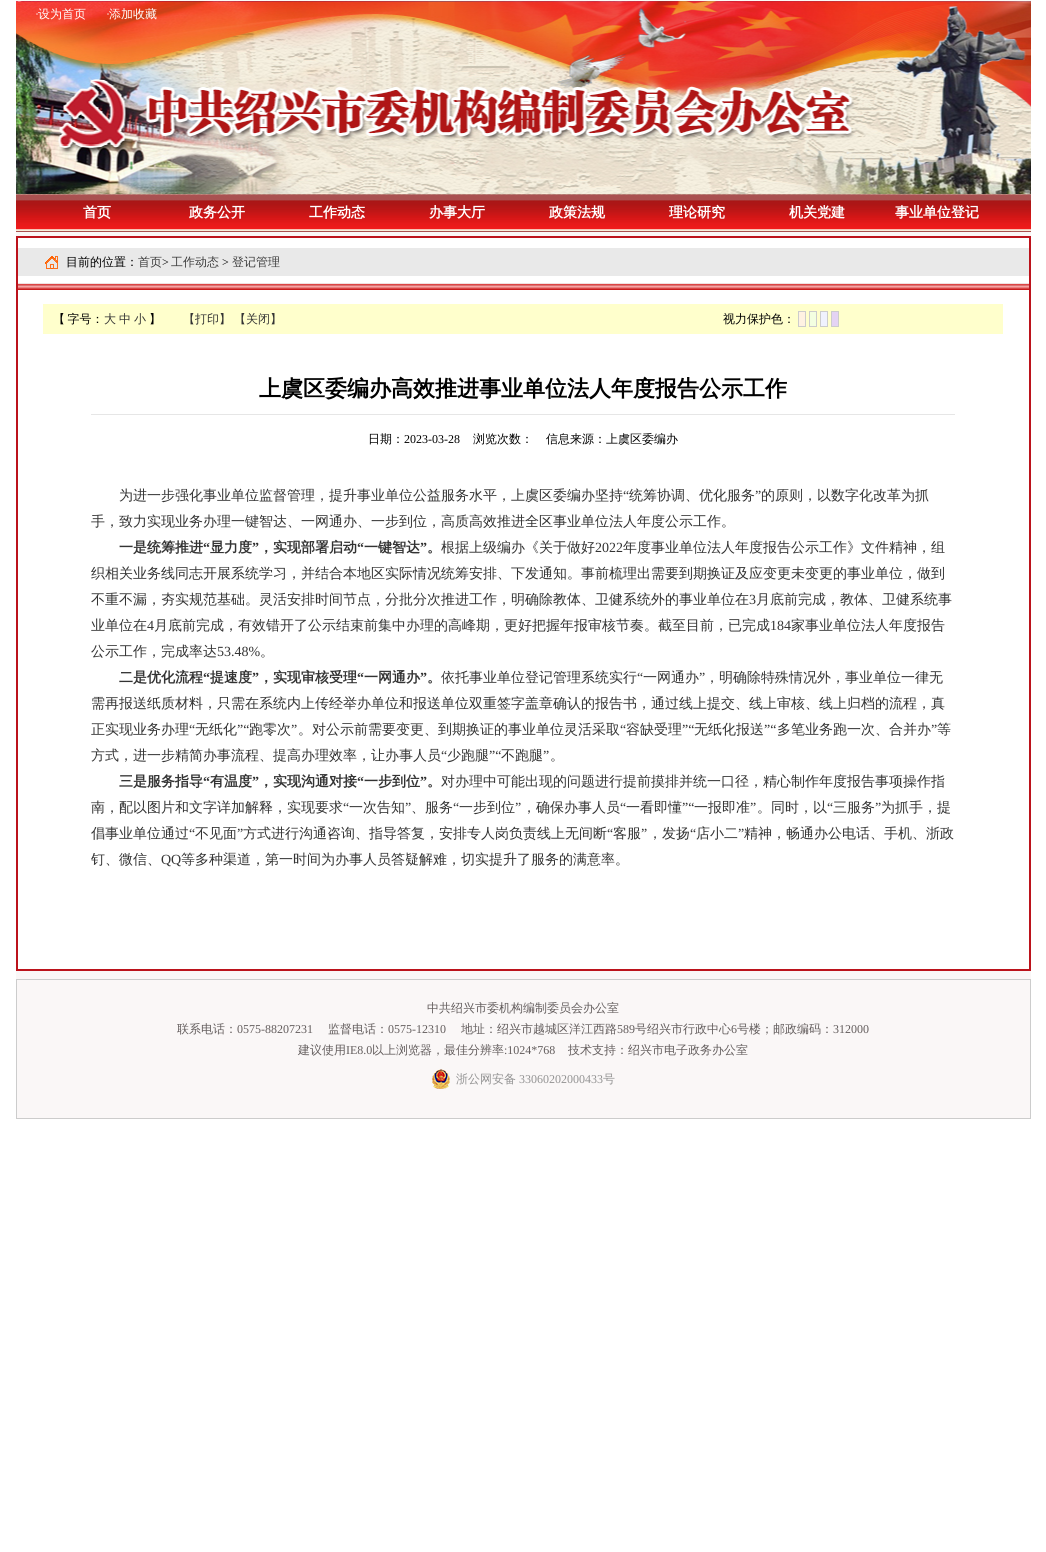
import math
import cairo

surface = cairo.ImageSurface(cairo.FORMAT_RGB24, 1046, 1552)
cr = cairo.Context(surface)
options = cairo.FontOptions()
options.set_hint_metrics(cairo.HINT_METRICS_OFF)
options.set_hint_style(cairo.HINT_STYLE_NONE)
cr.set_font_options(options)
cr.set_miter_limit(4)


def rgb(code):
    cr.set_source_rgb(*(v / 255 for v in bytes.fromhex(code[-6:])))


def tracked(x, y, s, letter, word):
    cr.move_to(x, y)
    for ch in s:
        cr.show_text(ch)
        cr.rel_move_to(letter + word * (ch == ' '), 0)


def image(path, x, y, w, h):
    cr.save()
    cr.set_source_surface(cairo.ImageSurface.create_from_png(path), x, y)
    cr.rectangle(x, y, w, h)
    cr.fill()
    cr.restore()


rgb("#ffffff")
cr.paint()
image("img/1.png", 16, 0, 1015, 194)
image("img/2.png", 16, 194, 1015, 38)
for x, y, w, h, color in [
    (16, 232, 1015, 4, "#faf7f7"),
    (16, 236, 1015, 2, "#bc131c"),
    (1029, 236, 2, 735, "#bc131c"),
    (16, 969, 1015, 2, "#bc131c"),
    (16, 236, 2, 735, "#bc131c"),
    (18, 248, 1011, 28, "#e9e9e9"),
]:
    rgb(color)
    cr.rectangle(x, y, w, h)
    cr.fill()
image("img/3.png", 45, 256, 13, 13)
image("img/4.png", 18, 283, 1011, 7)
rgb("#ffffcc")
cr.rectangle(43, 304, 960, 30)
cr.fill()
rgb("#fff2e2")
cr.rectangle(798.5, 311.5, 7, 15)
cr.fill_preserve()
rgb("#cccccc")
cr.set_line_width(1)
cr.stroke()
rgb("#f3ffe1")
cr.rectangle(809.5, 311.5, 7, 15)
cr.fill_preserve()
rgb("#cccccc")
cr.stroke()
rgb("#f0f2fe")
cr.rectangle(820.5, 311.5, 7, 15)
cr.fill_preserve()
rgb("#cccccc")
cr.stroke()
rgb("#e4d3f4")
cr.rectangle(831.5, 311.5, 7, 15)
cr.fill_preserve()
rgb("#cccccc")
cr.stroke()
for x, y, w, h, color in [
    (91, 414, 864, 1, "#e6e6e6"),
    (16, 971, 1015, 8, "#faf7f7"),
    (16, 979, 1015, 1, "#cccccc"),
    (1030, 979, 1, 140, "#cccccc"),
    (16, 1118, 1015, 1, "#cccccc"),
    (16, 979, 1, 140, "#cccccc"),
    (17, 980, 1013, 138, "#faf7f7"),
]:
    rgb(color)
    cr.rectangle(x, y, w, h)
    cr.fill()
image("img/5.png", 432, 1069, 18, 20)
cr.select_font_face("Liberation Serif")
cr.set_font_size(12)
rgb("#ffffff")
cr.move_to(35, 18)
cr.show_text("·")
cr.select_font_face("WenQuanYi Zen Hei Medium")
cr.move_to(38, 18)
cr.show_text("设为首页")
cr.select_font_face("Liberation Serif")
cr.move_to(106, 18)
cr.show_text("·")
cr.select_font_face("WenQuanYi Zen Hei Medium")
cr.move_to(109, 18)
cr.show_text("添加收藏")
cr.select_font_face("WenQuanYi Zen Hei", cairo.FONT_SLANT_NORMAL, cairo.FONT_WEIGHT_BOLD)
cr.set_font_size(14)
for x, y, s in [
    (83, 217, "首页"),
    (189, 217, "政务公开"),
    (309, 217, "工作动态"),
    (429, 217, "办事大厅"),
    (549, 217, "政策法规"),
    (669, 217, "理论研究"),
    (789, 217, "机关党建"),
    (895, 217, "事业单位登记"),
]:
    cr.move_to(x, y)
    cr.show_text(s)
cr.select_font_face("WenQuanYi Zen Hei Medium")
cr.set_font_size(12)
rgb("#000000")
cr.move_to(66, 266)
cr.show_text("目前的位置：")
rgb("#3d3d3d")
cr.move_to(138, 266)
cr.show_text("首页")
cr.select_font_face("Liberation Serif")
rgb("#000000")
cr.move_to(162, 266)
cr.show_text(">")
cr.select_font_face("WenQuanYi Zen Hei Medium")
rgb("#3d3d3d")
cr.move_to(171, 266)
cr.show_text("工作动态")
cr.select_font_face("Liberation Serif")
rgb("#000000")
cr.move_to(222, 266)
cr.show_text(">")
cr.select_font_face("WenQuanYi Zen Hei Medium")
rgb("#3d3d3d")
cr.move_to(232, 266)
cr.show_text("登记管理")
rgb("#000000")
tracked(53, 323, "【 字号：", 0, -1)
rgb("#333333")
for x, y, s in [
    (104, 323, "大"),
    (119, 323, "中"),
    (134, 323, "小"),
]:
    cr.move_to(x, y)
    cr.show_text(s)
rgb("#000000")
cr.move_to(149, 323)
cr.show_text("】")
rgb("#333333")
cr.move_to(183, 323)
cr.show_text("【打印】")
cr.move_to(234, 323)
cr.show_text("【关闭】")
rgb("#000000")
cr.move_to(723, 323)
cr.show_text("视力保护色：")
cr.select_font_face("WenQuanYi Zen Hei", cairo.FONT_SLANT_NORMAL, cairo.FONT_WEIGHT_BOLD)
cr.set_font_size(22)
cr.move_to(259, 396)
cr.show_text("上虞区委编办高效推进事业单位法人年度报告公示工作")
cr.select_font_face("WenQuanYi Zen Hei Medium")
cr.set_font_size(12)
cr.move_to(368, 443)
cr.show_text("日期：")
cr.select_font_face("Liberation Serif")
cr.move_to(404, 443)
cr.show_text("2023-03-28")
cr.select_font_face("WenQuanYi Zen Hei Medium")
cr.move_to(473, 443)
cr.show_text("浏览次数：")
cr.move_to(546, 443)
cr.show_text("信息来源：上虞区委编办")
cr.set_font_size(14)
rgb("#333333")
cr.move_to(119, 500)
cr.show_text("为进一步强化事业单位监督管理，提升事业单位公益服务水平，上虞区委编办坚持")
cr.select_font_face("Liberation Serif")
cr.move_to(623, 500)
cr.show_text("“")
cr.select_font_face("WenQuanYi Zen Hei Medium")
cr.move_to(629, 500)
cr.show_text("统筹协调、优化服务")
cr.select_font_face("Liberation Serif")
cr.move_to(755, 500)
cr.show_text("”")
cr.select_font_face("WenQuanYi Zen Hei Medium")
cr.move_to(761, 500)
cr.show_text("的原则，以数字化改革为抓")
cr.move_to(91, 526)
cr.show_text("手，致力实现业务办理一键智达、一网通办、一步到位，高质高效推进全区事业单位法人年度公示工作。")
cr.select_font_face("WenQuanYi Zen Hei", cairo.FONT_SLANT_NORMAL, cairo.FONT_WEIGHT_BOLD)
cr.move_to(119, 552)
cr.show_text("一是统筹推进")
cr.select_font_face("Liberation Serif", cairo.FONT_SLANT_NORMAL, cairo.FONT_WEIGHT_BOLD)
cr.move_to(203, 552)
cr.show_text("“")
cr.select_font_face("WenQuanYi Zen Hei", cairo.FONT_SLANT_NORMAL, cairo.FONT_WEIGHT_BOLD)
cr.move_to(210, 552)
cr.show_text("显力度")
cr.select_font_face("Liberation Serif", cairo.FONT_SLANT_NORMAL, cairo.FONT_WEIGHT_BOLD)
cr.move_to(252, 552)
cr.show_text("”")
cr.select_font_face("WenQuanYi Zen Hei", cairo.FONT_SLANT_NORMAL, cairo.FONT_WEIGHT_BOLD)
cr.move_to(259, 552)
cr.show_text("，实现部署启动")
cr.select_font_face("Liberation Serif", cairo.FONT_SLANT_NORMAL, cairo.FONT_WEIGHT_BOLD)
cr.move_to(357, 552)
cr.show_text("“")
cr.select_font_face("WenQuanYi Zen Hei", cairo.FONT_SLANT_NORMAL, cairo.FONT_WEIGHT_BOLD)
cr.move_to(364, 552)
cr.show_text("一键智达")
cr.select_font_face("Liberation Serif", cairo.FONT_SLANT_NORMAL, cairo.FONT_WEIGHT_BOLD)
cr.move_to(420, 552)
cr.show_text("”")
cr.select_font_face("WenQuanYi Zen Hei", cairo.FONT_SLANT_NORMAL, cairo.FONT_WEIGHT_BOLD)
cr.move_to(427, 552)
cr.show_text("。")
cr.select_font_face("WenQuanYi Zen Hei Medium")
cr.move_to(441, 552)
cr.show_text("根据上级编办《关于做好")
cr.select_font_face("Liberation Serif")
cr.move_to(595, 552)
cr.show_text("2022")
cr.select_font_face("WenQuanYi Zen Hei Medium")
for x, y, s in [
    (623, 552, "年度事业单位法人年度报告公示工作》文件精神，组"),
    (91, 578, "织相关业务线同志开展系统学习，并结合本地区实际情况统筹安排、下发通知。事前梳理出需要到期换证及应变更未变更的事业单位，做到"),
    (91, 604, "不重不漏，夯实规范基础。灵活安排时间节点，分批分次推进工作，明确除教体、卫健系统外的事业单位在"),
]:
    cr.move_to(x, y)
    cr.show_text(s)
cr.select_font_face("Liberation Serif")
cr.move_to(749, 604)
cr.show_text("3")
cr.select_font_face("WenQuanYi Zen Hei Medium")
cr.move_to(756, 604)
cr.show_text("月底前完成，教体、卫健系统事")
cr.move_to(91, 630)
cr.show_text("业单位在")
cr.select_font_face("Liberation Serif")
cr.move_to(147, 630)
cr.show_text("4")
cr.select_font_face("WenQuanYi Zen Hei Medium")
cr.move_to(154, 630)
cr.show_text("月底前完成，有效错开了公示结束前集中办理的高峰期，更好把握年报审核节奏。截至目前，已完成")
cr.select_font_face("Liberation Serif")
cr.move_to(770, 630)
cr.show_text("184")
cr.select_font_face("WenQuanYi Zen Hei Medium")
cr.move_to(791, 630)
cr.show_text("家事业单位法人年度报告")
cr.move_to(91, 656)
cr.show_text("公示工作，完成率达")
cr.select_font_face("Liberation Serif")
cr.move_to(217, 656)
cr.show_text("53.48%")
cr.select_font_face("WenQuanYi Zen Hei Medium")
cr.move_to(260, 656)
cr.show_text("。")
cr.select_font_face("WenQuanYi Zen Hei", cairo.FONT_SLANT_NORMAL, cairo.FONT_WEIGHT_BOLD)
cr.move_to(119, 682)
cr.show_text("二是优化流程")
cr.select_font_face("Liberation Serif", cairo.FONT_SLANT_NORMAL, cairo.FONT_WEIGHT_BOLD)
cr.move_to(203, 682)
cr.show_text("“")
cr.select_font_face("WenQuanYi Zen Hei", cairo.FONT_SLANT_NORMAL, cairo.FONT_WEIGHT_BOLD)
cr.move_to(210, 682)
cr.show_text("提速度")
cr.select_font_face("Liberation Serif", cairo.FONT_SLANT_NORMAL, cairo.FONT_WEIGHT_BOLD)
cr.move_to(252, 682)
cr.show_text("”")
cr.select_font_face("WenQuanYi Zen Hei", cairo.FONT_SLANT_NORMAL, cairo.FONT_WEIGHT_BOLD)
cr.move_to(259, 682)
cr.show_text("，实现审核受理")
cr.select_font_face("Liberation Serif", cairo.FONT_SLANT_NORMAL, cairo.FONT_WEIGHT_BOLD)
cr.move_to(357, 682)
cr.show_text("“")
cr.select_font_face("WenQuanYi Zen Hei", cairo.FONT_SLANT_NORMAL, cairo.FONT_WEIGHT_BOLD)
cr.move_to(364, 682)
cr.show_text("一网通办")
cr.select_font_face("Liberation Serif", cairo.FONT_SLANT_NORMAL, cairo.FONT_WEIGHT_BOLD)
cr.move_to(420, 682)
cr.show_text("”")
cr.select_font_face("WenQuanYi Zen Hei Medium")
cr.move_to(441, 682)
cr.show_text("依托事业单位登记管理系统实行")
cr.select_font_face("Liberation Serif")
cr.move_to(637, 682)
cr.show_text("“")
cr.select_font_face("WenQuanYi Zen Hei Medium")
cr.move_to(643, 682)
cr.show_text("一网通办")
cr.select_font_face("Liberation Serif")
cr.move_to(699, 682)
cr.show_text("”")
cr.select_font_face("WenQuanYi Zen Hei Medium")
cr.move_to(705, 682)
cr.show_text("，明确除特殊情况外，事业单位一律无")
cr.select_font_face("WenQuanYi Zen Hei", cairo.FONT_SLANT_NORMAL, cairo.FONT_WEIGHT_BOLD)
cr.move_to(427, 682)
cr.show_text("。")
cr.select_font_face("WenQuanYi Zen Hei Medium")
cr.move_to(91, 708)
cr.show_text("需再报送纸质材料，只需在系统内上传经举办单位和报送单位双重签字盖章确认的报告书，通过线上提交、线上审核、线上归档的流程，真")
cr.move_to(91, 734)
cr.show_text("正实现业务办理")
cr.select_font_face("Liberation Serif")
cr.move_to(189, 734)
cr.show_text("“")
cr.select_font_face("WenQuanYi Zen Hei Medium")
cr.move_to(195, 734)
cr.show_text("无纸化")
cr.select_font_face("Liberation Serif")
cr.move_to(237, 734)
cr.show_text("”“")
cr.select_font_face("WenQuanYi Zen Hei Medium")
cr.move_to(249, 734)
cr.show_text("跑零次")
cr.select_font_face("Liberation Serif")
cr.move_to(291, 734)
cr.show_text("”")
cr.select_font_face("WenQuanYi Zen Hei Medium")
cr.move_to(298, 734)
cr.show_text("。对公示前需要变更、到期换证的事业单位灵活采取")
cr.select_font_face("Liberation Serif")
cr.move_to(620, 734)
cr.show_text("“")
cr.select_font_face("WenQuanYi Zen Hei Medium")
cr.move_to(626, 734)
cr.show_text("容缺受理")
cr.select_font_face("Liberation Serif")
cr.move_to(682, 734)
cr.show_text("”“")
cr.select_font_face("WenQuanYi Zen Hei Medium")
cr.move_to(694, 734)
cr.show_text("无纸化报送")
cr.select_font_face("Liberation Serif")
cr.move_to(764, 734)
cr.show_text("”“")
cr.select_font_face("WenQuanYi Zen Hei Medium")
cr.move_to(777, 734)
cr.show_text("多笔业务跑一次、合并办")
cr.select_font_face("Liberation Serif")
cr.move_to(931, 734)
cr.show_text("”")
cr.select_font_face("WenQuanYi Zen Hei Medium")
cr.move_to(937, 734)
cr.show_text("等")
cr.move_to(91, 760)
cr.show_text("方式，进一步精简办事流程、提高办理效率，让办事人员")
cr.select_font_face("Liberation Serif")
cr.move_to(441, 760)
cr.show_text("“")
cr.select_font_face("WenQuanYi Zen Hei Medium")
cr.move_to(447, 760)
cr.show_text("少跑腿")
cr.select_font_face("Liberation Serif")
cr.move_to(489, 760)
cr.show_text("”“")
cr.select_font_face("WenQuanYi Zen Hei Medium")
cr.move_to(501, 760)
cr.show_text("不跑腿")
cr.select_font_face("Liberation Serif")
cr.move_to(543, 760)
cr.show_text("”")
cr.select_font_face("WenQuanYi Zen Hei Medium")
cr.move_to(550, 760)
cr.show_text("。")
cr.select_font_face("WenQuanYi Zen Hei", cairo.FONT_SLANT_NORMAL, cairo.FONT_WEIGHT_BOLD)
cr.move_to(119, 786)
cr.show_text("三是服务指导")
cr.select_font_face("Liberation Serif", cairo.FONT_SLANT_NORMAL, cairo.FONT_WEIGHT_BOLD)
cr.move_to(203, 786)
cr.show_text("“")
cr.select_font_face("WenQuanYi Zen Hei", cairo.FONT_SLANT_NORMAL, cairo.FONT_WEIGHT_BOLD)
cr.move_to(210, 786)
cr.show_text("有温度")
cr.select_font_face("Liberation Serif", cairo.FONT_SLANT_NORMAL, cairo.FONT_WEIGHT_BOLD)
cr.move_to(252, 786)
cr.show_text("”")
cr.select_font_face("WenQuanYi Zen Hei", cairo.FONT_SLANT_NORMAL, cairo.FONT_WEIGHT_BOLD)
cr.move_to(259, 786)
cr.show_text("，实现沟通对接")
cr.select_font_face("Liberation Serif", cairo.FONT_SLANT_NORMAL, cairo.FONT_WEIGHT_BOLD)
cr.move_to(357, 786)
cr.show_text("“")
cr.select_font_face("WenQuanYi Zen Hei", cairo.FONT_SLANT_NORMAL, cairo.FONT_WEIGHT_BOLD)
cr.move_to(364, 786)
cr.show_text("一步到位")
cr.select_font_face("Liberation Serif", cairo.FONT_SLANT_NORMAL, cairo.FONT_WEIGHT_BOLD)
cr.move_to(420, 786)
cr.show_text("”")
cr.select_font_face("WenQuanYi Zen Hei Medium")
cr.move_to(441, 786)
cr.show_text("对办理中可能出现的问题进行提前摸排并统一口径，精心制作年度报告事项操作指")
cr.select_font_face("WenQuanYi Zen Hei", cairo.FONT_SLANT_NORMAL, cairo.FONT_WEIGHT_BOLD)
cr.move_to(427, 786)
cr.show_text("。")
cr.select_font_face("WenQuanYi Zen Hei Medium")
cr.move_to(91, 812)
cr.show_text("南，配以图片和文字详加解释，实现要求")
cr.select_font_face("Liberation Serif")
cr.move_to(343, 812)
cr.show_text("“")
cr.select_font_face("WenQuanYi Zen Hei Medium")
cr.move_to(349, 812)
cr.show_text("一次告知")
cr.select_font_face("Liberation Serif")
cr.move_to(405, 812)
cr.show_text("”")
cr.select_font_face("WenQuanYi Zen Hei Medium")
cr.move_to(411, 812)
cr.show_text("、服务")
cr.select_font_face("Liberation Serif")
cr.move_to(453, 812)
cr.show_text("“")
cr.select_font_face("WenQuanYi Zen Hei Medium")
cr.move_to(459, 812)
cr.show_text("一步到位")
cr.select_font_face("Liberation Serif")
cr.move_to(515, 812)
cr.show_text("”")
cr.select_font_face("WenQuanYi Zen Hei Medium")
cr.move_to(522, 812)
cr.show_text("，确保办事人员")
cr.select_font_face("Liberation Serif")
cr.move_to(620, 812)
cr.show_text("“")
cr.select_font_face("WenQuanYi Zen Hei Medium")
cr.move_to(626, 812)
cr.show_text("一看即懂")
cr.select_font_face("Liberation Serif")
cr.move_to(682, 812)
cr.show_text("”“")
cr.select_font_face("WenQuanYi Zen Hei Medium")
cr.move_to(694, 812)
cr.show_text("一报即准")
cr.select_font_face("Liberation Serif")
cr.move_to(750, 812)
cr.show_text("”")
cr.select_font_face("WenQuanYi Zen Hei Medium")
cr.move_to(757, 812)
cr.show_text("。同时，以")
cr.select_font_face("Liberation Serif")
cr.move_to(827, 812)
cr.show_text("“")
cr.select_font_face("WenQuanYi Zen Hei Medium")
cr.move_to(833, 812)
cr.show_text("三服务")
cr.select_font_face("Liberation Serif")
cr.move_to(875, 812)
cr.show_text("”")
cr.select_font_face("WenQuanYi Zen Hei Medium")
cr.move_to(881, 812)
cr.show_text("为抓手，提")
cr.move_to(91, 838)
cr.show_text("倡事业单位通过")
cr.select_font_face("Liberation Serif")
cr.move_to(189, 838)
cr.show_text("“")
cr.select_font_face("WenQuanYi Zen Hei Medium")
cr.move_to(195, 838)
cr.show_text("不见面")
cr.select_font_face("Liberation Serif")
cr.move_to(237, 838)
cr.show_text("”")
cr.select_font_face("WenQuanYi Zen Hei Medium")
cr.move_to(243, 838)
cr.show_text("方式进行沟通咨询、指导答复，安排专人岗负责线上无间断")
cr.select_font_face("Liberation Serif")
cr.move_to(607, 838)
cr.show_text("“")
cr.select_font_face("WenQuanYi Zen Hei Medium")
cr.move_to(613, 838)
cr.show_text("客服")
cr.select_font_face("Liberation Serif")
cr.move_to(641, 838)
cr.show_text("”")
cr.select_font_face("WenQuanYi Zen Hei Medium")
cr.move_to(648, 838)
cr.show_text("，发扬")
cr.select_font_face("Liberation Serif")
cr.move_to(690, 838)
cr.show_text("“")
cr.select_font_face("WenQuanYi Zen Hei Medium")
cr.move_to(696, 838)
cr.show_text("店小二")
cr.select_font_face("Liberation Serif")
cr.move_to(738, 838)
cr.show_text("”")
cr.select_font_face("WenQuanYi Zen Hei Medium")
cr.move_to(744, 838)
cr.show_text("精神，畅通办公电话、手机、浙政")
cr.move_to(91, 864)
cr.show_text("钉、微信、")
cr.select_font_face("Liberation Serif")
cr.move_to(161, 864)
cr.show_text("QQ")
cr.select_font_face("WenQuanYi Zen Hei Medium")
cr.move_to(181, 864)
cr.show_text("等多种渠道，第一时间为办事人员答疑解难，切实提升了服务的满意率。")
cr.set_font_size(12)
rgb("#635d5d")
cr.move_to(427, 1012)
cr.show_text("中共绍兴市委机构编制委员会办公室")
cr.move_to(177, 1033)
cr.show_text("联系电话：")
cr.select_font_face("Liberation Serif")
cr.move_to(237, 1033)
cr.show_text("0575-88207231")
cr.select_font_face("WenQuanYi Zen Hei Medium")
cr.move_to(328, 1033)
cr.show_text("监督电话：")
cr.select_font_face("Liberation Serif")
cr.move_to(388, 1033)
cr.show_text("0575-12310")
cr.select_font_face("WenQuanYi Zen Hei Medium")
cr.move_to(461, 1033)
cr.show_text("地址：绍兴市越城区洋江西路")
cr.select_font_face("Liberation Serif")
cr.move_to(617, 1033)
cr.show_text("589")
cr.select_font_face("WenQuanYi Zen Hei Medium")
cr.move_to(635, 1033)
cr.show_text("号绍兴市行政中心")
cr.select_font_face("Liberation Serif")
cr.move_to(731, 1033)
cr.show_text("6")
cr.select_font_face("WenQuanYi Zen Hei Medium")
cr.move_to(737, 1033)
cr.show_text("号楼；邮政编码：")
cr.select_font_face("Liberation Serif")
cr.move_to(833, 1033)
cr.show_text("312000")
cr.select_font_face("WenQuanYi Zen Hei Medium")
cr.move_to(298, 1054)
cr.show_text("建议使用")
cr.select_font_face("Liberation Serif")
cr.move_to(346, 1054)
cr.show_text("IE8.0")
cr.select_font_face("WenQuanYi Zen Hei Medium")
cr.move_to(372, 1054)
cr.show_text("以上浏览器，最佳分辨率")
cr.select_font_face("Liberation Serif")
cr.move_to(504, 1054)
cr.show_text(":1024*768")
cr.select_font_face("WenQuanYi Zen Hei Medium")
cr.move_to(568, 1054)
cr.show_text("技术支持：绍兴市电子政务办公室")
rgb("#939393")
cr.move_to(456, 1083)
cr.show_text("浙公网安备")
cr.select_font_face("Liberation Serif")
cr.move_to(519, 1083)
cr.show_text("33060202000433")
cr.select_font_face("WenQuanYi Zen Hei Medium")
cr.move_to(603, 1083)
cr.show_text("号")
surface.write_to_png("page.png")
